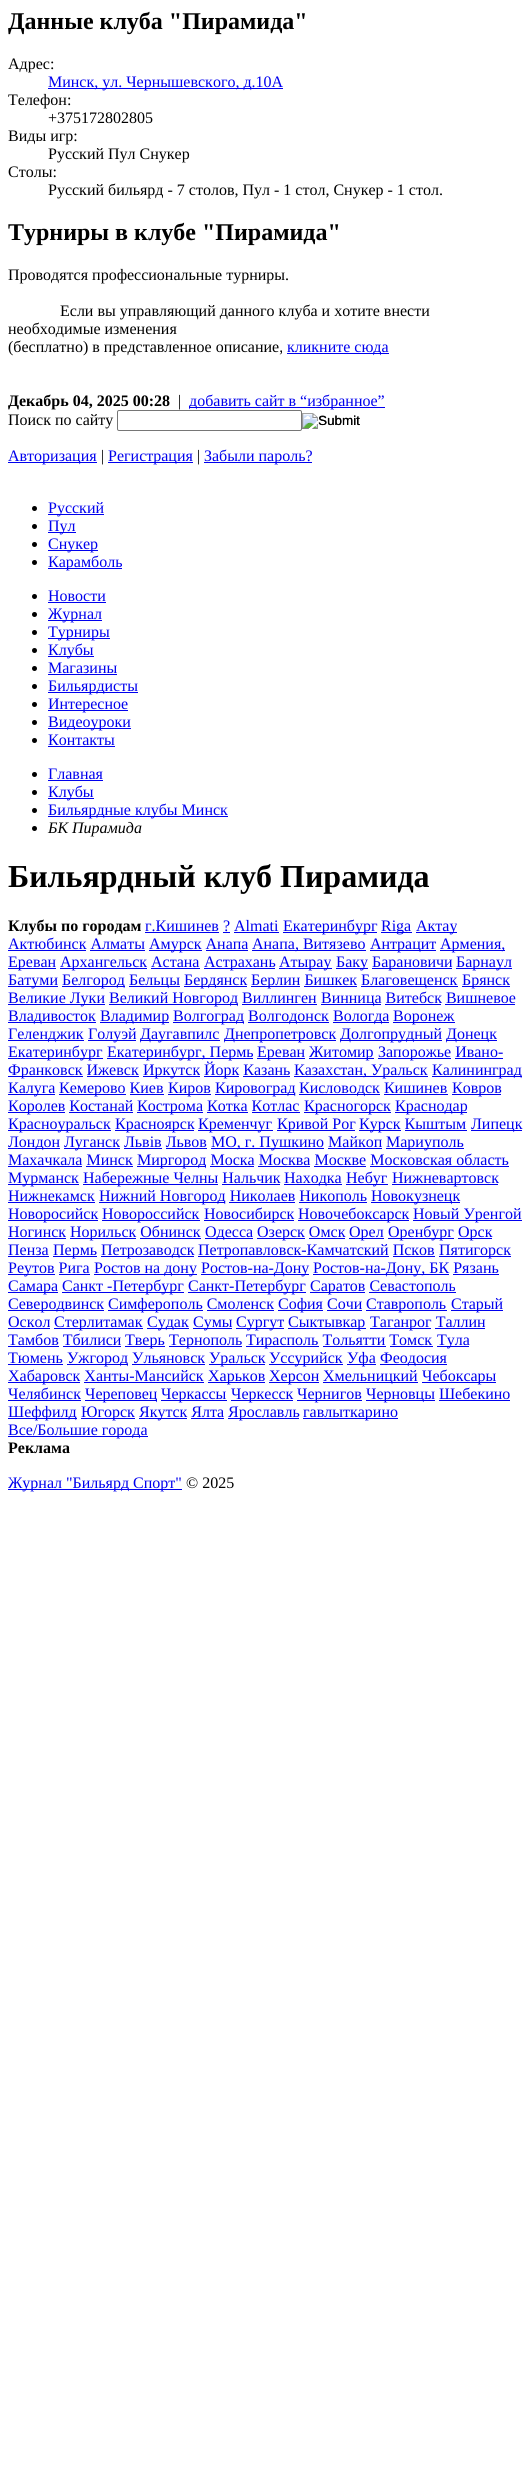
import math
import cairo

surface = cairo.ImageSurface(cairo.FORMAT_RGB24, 531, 2484)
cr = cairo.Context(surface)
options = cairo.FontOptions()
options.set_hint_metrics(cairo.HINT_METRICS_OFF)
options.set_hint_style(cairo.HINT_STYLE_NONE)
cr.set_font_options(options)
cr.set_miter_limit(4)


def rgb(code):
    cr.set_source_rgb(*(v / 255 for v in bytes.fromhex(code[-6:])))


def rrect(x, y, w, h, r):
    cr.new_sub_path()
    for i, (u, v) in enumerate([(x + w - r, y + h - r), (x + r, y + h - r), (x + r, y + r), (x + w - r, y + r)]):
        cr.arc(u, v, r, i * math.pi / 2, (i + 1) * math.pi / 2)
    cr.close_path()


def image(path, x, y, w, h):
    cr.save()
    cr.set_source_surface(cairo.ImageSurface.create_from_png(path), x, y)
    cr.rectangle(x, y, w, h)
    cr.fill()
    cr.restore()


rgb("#ffffff")
cr.paint()
for x, y, w, h, color in [
    (48, 88, 235, 1, "#0000ee"),
    (287, 353, 102, 1, "#0000ee"),
    (189, 407, 196, 1, "#0000ee"),
]:
    rgb(color)
    cr.rectangle(x, y, w, h)
    cr.fill()
rrect(117.5, 410.5, 184, 20, 1.5)
rgb("#767676")
cr.set_line_width(1)
cr.stroke()
image("img/1.png", 302, 413, 58, 16)
for x, y, w, h, color in [
    (8, 462, 89, 1, "#0000ee"),
    (108, 462, 85, 1, "#0000ee"),
    (204, 462, 108, 1, "#0000ee"),
]:
    rgb(color)
    cr.rectangle(x, y, w, h)
    cr.fill()
rgb("#000000")
cr.arc(34.5, 508.5, 2.5, 0, 2 * math.pi)
cr.fill()
rgb("#0000ee")
cr.rectangle(48, 514, 56, 1)
cr.fill()
rgb("#000000")
cr.arc(34.5, 526.5, 2.5, 0, 2 * math.pi)
cr.fill()
rgb("#0000ee")
cr.rectangle(48, 532, 28, 1)
cr.fill()
rgb("#000000")
cr.arc(34.5, 544.5, 2.5, 0, 2 * math.pi)
cr.fill()
rgb("#0000ee")
cr.rectangle(48, 550, 50, 1)
cr.fill()
rgb("#000000")
cr.arc(34.5, 562.5, 2.5, 0, 2 * math.pi)
cr.fill()
rgb("#0000ee")
cr.rectangle(48, 568, 74, 1)
cr.fill()
rgb("#000000")
cr.arc(34.5, 596.5, 2.5, 0, 2 * math.pi)
cr.fill()
rgb("#0000ee")
cr.rectangle(48, 602, 58, 1)
cr.fill()
rgb("#000000")
cr.arc(34.5, 614.5, 2.5, 0, 2 * math.pi)
cr.fill()
rgb("#0000ee")
cr.rectangle(48, 620, 54, 1)
cr.fill()
rgb("#000000")
cr.arc(34.5, 632.5, 2.5, 0, 2 * math.pi)
cr.fill()
rgb("#0000ee")
cr.rectangle(48, 638, 62, 1)
cr.fill()
rgb("#000000")
cr.arc(34.5, 650.5, 2.5, 0, 2 * math.pi)
cr.fill()
rgb("#0000ee")
cr.rectangle(48, 656, 46, 1)
cr.fill()
rgb("#000000")
cr.arc(34.5, 668.5, 2.5, 0, 2 * math.pi)
cr.fill()
rgb("#0000ee")
cr.rectangle(48, 674, 69, 1)
cr.fill()
rgb("#000000")
cr.arc(34.5, 686.5, 2.5, 0, 2 * math.pi)
cr.fill()
rgb("#0000ee")
cr.rectangle(48, 692, 90, 1)
cr.fill()
rgb("#000000")
cr.arc(34.5, 704.5, 2.5, 0, 2 * math.pi)
cr.fill()
rgb("#0000ee")
cr.rectangle(48, 710, 80, 1)
cr.fill()
rgb("#000000")
cr.arc(34.5, 722.5, 2.5, 0, 2 * math.pi)
cr.fill()
rgb("#0000ee")
cr.rectangle(48, 728, 83, 1)
cr.fill()
rgb("#000000")
cr.arc(34.5, 740.5, 2.5, 0, 2 * math.pi)
cr.fill()
rgb("#0000ee")
cr.rectangle(48, 746, 67, 1)
cr.fill()
rgb("#000000")
cr.arc(34.5, 774.5, 2.5, 0, 2 * math.pi)
cr.fill()
rgb("#0000ee")
cr.rectangle(48, 780, 55, 1)
cr.fill()
rgb("#000000")
cr.arc(34.5, 792.5, 2.5, 0, 2 * math.pi)
cr.fill()
rgb("#0000ee")
cr.rectangle(48, 798, 46, 1)
cr.fill()
rgb("#000000")
cr.arc(34.5, 810.5, 2.5, 0, 2 * math.pi)
cr.fill()
rgb("#0000ee")
cr.rectangle(48, 816, 180, 1)
cr.fill()
rgb("#000000")
cr.arc(34.5, 828.5, 2.5, 0, 2 * math.pi)
cr.fill()
for x, y, w, h, color in [
    (145, 932, 74, 1, "#0000ee"),
    (283, 932, 94, 1, "#0000ee"),
    (381, 932, 31, 1, "#0000ee"),
    (416, 932, 41, 1, "#0000ee"),
    (223, 932, 7, 1, "#0000ee"),
    (234, 932, 45, 1, "#0000ee"),
    (8, 950, 78, 1, "#0000ee"),
    (149, 950, 53, 1, "#0000ee"),
    (252, 950, 114, 1, "#0000ee"),
    (370, 950, 66, 1, "#0000ee"),
    (440, 950, 65, 1, "#0000ee"),
    (90, 950, 55, 1, "#0000ee"),
    (206, 950, 42, 1, "#0000ee"),
    (8, 968, 48, 1, "#0000ee"),
    (60, 968, 87, 1, "#0000ee"),
    (204, 968, 71, 1, "#0000ee"),
    (279, 968, 53, 1, "#0000ee"),
    (336, 968, 32, 1, "#0000ee"),
    (372, 968, 80, 1, "#0000ee"),
    (456, 968, 56, 1, "#0000ee"),
    (151, 968, 49, 1, "#0000ee"),
    (8, 986, 50, 1, "#0000ee"),
    (62, 986, 63, 1, "#0000ee"),
    (129, 986, 51, 1, "#0000ee"),
    (184, 986, 63, 1, "#0000ee"),
    (251, 986, 49, 1, "#0000ee"),
    (361, 986, 97, 1, "#0000ee"),
    (462, 986, 48, 1, "#0000ee"),
    (304, 986, 53, 1, "#0000ee"),
    (8, 1004, 97, 1, "#0000ee"),
    (109, 1004, 129, 1, "#0000ee"),
    (321, 1004, 60, 1, "#0000ee"),
    (242, 1004, 75, 1, "#0000ee"),
    (385, 1004, 56, 1, "#0000ee"),
    (445, 1004, 70, 1, "#0000ee"),
    (8, 1022, 88, 1, "#0000ee"),
    (100, 1022, 69, 1, "#0000ee"),
    (173, 1022, 71, 1, "#0000ee"),
    (248, 1022, 81, 1, "#0000ee"),
    (333, 1022, 56, 1, "#0000ee"),
    (393, 1022, 62, 1, "#0000ee"),
    (8, 1040, 76, 1, "#0000ee"),
    (88, 1040, 48, 1, "#0000ee"),
    (140, 1040, 80, 1, "#0000ee"),
    (224, 1040, 112, 1, "#0000ee"),
    (340, 1040, 102, 1, "#0000ee"),
    (446, 1040, 51, 1, "#0000ee"),
    (8, 1058, 95, 1, "#0000ee"),
    (107, 1058, 146, 1, "#0000ee"),
    (257, 1058, 48, 1, "#0000ee"),
    (309, 1058, 65, 1, "#0000ee"),
    (378, 1058, 73, 1, "#0000ee"),
    (455, 1058, 48, 1, "#0000ee"),
    (8, 1076, 75, 1, "#0000ee"),
    (143, 1076, 57, 1, "#0000ee"),
    (204, 1076, 35, 1, "#0000ee"),
    (294, 1076, 134, 1, "#0000ee"),
    (432, 1076, 90, 1, "#0000ee"),
    (87, 1076, 52, 1, "#0000ee"),
    (243, 1076, 47, 1, "#0000ee"),
    (8, 1094, 47, 1, "#0000ee"),
    (59, 1094, 67, 1, "#0000ee"),
    (168, 1094, 43, 1, "#0000ee"),
    (215, 1094, 80, 1, "#0000ee"),
    (299, 1094, 81, 1, "#0000ee"),
    (452, 1094, 49, 1, "#0000ee"),
    (130, 1094, 34, 1, "#0000ee"),
    (384, 1094, 64, 1, "#0000ee"),
    (8, 1112, 57, 1, "#0000ee"),
    (137, 1112, 66, 1, "#0000ee"),
    (304, 1112, 87, 1, "#0000ee"),
    (395, 1112, 72, 1, "#0000ee"),
    (69, 1112, 64, 1, "#0000ee"),
    (207, 1112, 41, 1, "#0000ee"),
    (252, 1112, 48, 1, "#0000ee"),
    (8, 1130, 103, 1, "#0000ee"),
    (115, 1130, 79, 1, "#0000ee"),
    (198, 1130, 75, 1, "#0000ee"),
    (277, 1130, 78, 1, "#0000ee"),
    (359, 1130, 42, 1, "#0000ee"),
    (471, 1130, 51, 1, "#0000ee"),
    (405, 1130, 62, 1, "#0000ee"),
    (8, 1148, 52, 1, "#0000ee"),
    (64, 1148, 56, 1, "#0000ee"),
    (211, 1148, 113, 1, "#0000ee"),
    (386, 1148, 78, 1, "#0000ee"),
    (124, 1148, 38, 1, "#0000ee"),
    (166, 1148, 41, 1, "#0000ee"),
    (328, 1148, 54, 1, "#0000ee"),
    (8, 1166, 74, 1, "#0000ee"),
    (137, 1166, 69, 1, "#0000ee"),
    (86, 1166, 47, 1, "#0000ee"),
    (210, 1166, 44, 1, "#0000ee"),
    (258, 1166, 52, 1, "#0000ee"),
    (314, 1166, 52, 1, "#0000ee"),
    (370, 1166, 139, 1, "#0000ee"),
    (8, 1184, 71, 1, "#0000ee"),
    (83, 1184, 135, 1, "#0000ee"),
    (284, 1184, 58, 1, "#0000ee"),
    (346, 1184, 42, 1, "#0000ee"),
    (392, 1184, 106, 1, "#0000ee"),
    (222, 1184, 58, 1, "#0000ee"),
    (8, 1202, 87, 1, "#0000ee"),
    (99, 1202, 126, 1, "#0000ee"),
    (371, 1202, 89, 1, "#0000ee"),
    (229, 1202, 66, 1, "#0000ee"),
    (299, 1202, 68, 1, "#0000ee"),
    (8, 1220, 90, 1, "#0000ee"),
    (102, 1220, 98, 1, "#0000ee"),
    (204, 1220, 90, 1, "#0000ee"),
    (298, 1220, 111, 1, "#0000ee"),
    (413, 1220, 109, 1, "#0000ee"),
    (8, 1238, 58, 1, "#0000ee"),
    (70, 1238, 66, 1, "#0000ee"),
    (205, 1238, 48, 1, "#0000ee"),
    (257, 1238, 48, 1, "#0000ee"),
    (349, 1238, 35, 1, "#0000ee"),
    (388, 1238, 66, 1, "#0000ee"),
    (458, 1238, 34, 1, "#0000ee"),
    (140, 1238, 61, 1, "#0000ee"),
    (309, 1238, 36, 1, "#0000ee"),
    (8, 1256, 41, 1, "#0000ee"),
    (53, 1256, 44, 1, "#0000ee"),
    (101, 1256, 93, 1, "#0000ee"),
    (198, 1256, 191, 1, "#0000ee"),
    (439, 1256, 72, 1, "#0000ee"),
    (393, 1256, 42, 1, "#0000ee"),
    (8, 1274, 47, 1, "#0000ee"),
    (94, 1274, 103, 1, "#0000ee"),
    (201, 1274, 108, 1, "#0000ee"),
    (313, 1274, 136, 1, "#0000ee"),
    (59, 1274, 31, 1, "#0000ee"),
    (453, 1274, 46, 1, "#0000ee"),
    (8, 1292, 50, 1, "#0000ee"),
    (62, 1292, 122, 1, "#0000ee"),
    (188, 1292, 118, 1, "#0000ee"),
    (310, 1292, 55, 1, "#0000ee"),
    (369, 1292, 87, 1, "#0000ee"),
    (8, 1310, 96, 1, "#0000ee"),
    (108, 1310, 95, 1, "#0000ee"),
    (278, 1310, 45, 1, "#0000ee"),
    (366, 1310, 81, 1, "#0000ee"),
    (451, 1310, 52, 1, "#0000ee"),
    (207, 1310, 67, 1, "#0000ee"),
    (327, 1310, 35, 1, "#0000ee"),
    (8, 1328, 42, 1, "#0000ee"),
    (54, 1328, 89, 1, "#0000ee"),
    (147, 1328, 42, 1, "#0000ee"),
    (193, 1328, 39, 1, "#0000ee"),
    (236, 1328, 48, 1, "#0000ee"),
    (288, 1328, 78, 1, "#0000ee"),
    (370, 1328, 61, 1, "#0000ee"),
    (435, 1328, 50, 1, "#0000ee"),
    (8, 1346, 51, 1, "#0000ee"),
    (125, 1346, 40, 1, "#0000ee"),
    (169, 1346, 73, 1, "#0000ee"),
    (246, 1346, 73, 1, "#0000ee"),
    (437, 1346, 32, 1, "#0000ee"),
    (63, 1346, 58, 1, "#0000ee"),
    (323, 1346, 63, 1, "#0000ee"),
    (390, 1346, 43, 1, "#0000ee"),
    (8, 1364, 55, 1, "#0000ee"),
    (67, 1364, 61, 1, "#0000ee"),
    (209, 1364, 56, 1, "#0000ee"),
    (269, 1364, 74, 1, "#0000ee"),
    (347, 1364, 29, 1, "#0000ee"),
    (380, 1364, 67, 1, "#0000ee"),
    (132, 1364, 73, 1, "#0000ee"),
    (8, 1382, 72, 1, "#0000ee"),
    (208, 1382, 57, 1, "#0000ee"),
    (269, 1382, 50, 1, "#0000ee"),
    (323, 1382, 95, 1, "#0000ee"),
    (422, 1382, 74, 1, "#0000ee"),
    (84, 1382, 120, 1, "#0000ee"),
    (8, 1400, 73, 1, "#0000ee"),
    (85, 1400, 72, 1, "#0000ee"),
    (161, 1400, 66, 1, "#0000ee"),
    (231, 1400, 62, 1, "#0000ee"),
    (297, 1400, 65, 1, "#0000ee"),
    (366, 1400, 69, 1, "#0000ee"),
    (439, 1400, 71, 1, "#0000ee"),
    (8, 1418, 69, 1, "#0000ee"),
    (81, 1418, 54, 1, "#0000ee"),
    (139, 1418, 48, 1, "#0000ee"),
    (228, 1418, 71, 1, "#0000ee"),
    (303, 1418, 95, 1, "#0000ee"),
    (191, 1418, 33, 1, "#0000ee"),
    (8, 1436, 140, 1, "#0000ee"),
    (8, 1489, 174, 1, "#0000ee"),
]:
    rgb(color)
    cr.rectangle(x, y, w, h)
    cr.fill()
cr.select_font_face("Liberation Serif", cairo.FONT_SLANT_NORMAL, cairo.FONT_WEIGHT_BOLD)
cr.set_font_size(24)
rgb("#000000")
cr.move_to(8, 29)
cr.show_text("Данные клуба \"Пирамида\"")
cr.select_font_face("Liberation Serif")
cr.set_font_size(16)
cr.move_to(8, 69)
cr.show_text("Адрес:")
rgb("#0000ee")
cr.move_to(48, 87)
cr.show_text("Минск, ул. Чернышевского, д.10А")
rgb("#000000")
for x, y, s in [
    (8, 105, "Телефон:"),
    (48, 123, "+375172802805"),
    (8, 141, "Виды игр:"),
    (48, 159, "Русский Пул Снукер"),
    (8, 177, "Столы:"),
    (48, 195, "Русский бильярд - 7 столов, Пул - 1 стол, Снукер - 1 стол."),
]:
    cr.move_to(x, y)
    cr.show_text(s)
cr.select_font_face("Liberation Serif", cairo.FONT_SLANT_NORMAL, cairo.FONT_WEIGHT_BOLD)
cr.set_font_size(24)
cr.move_to(8, 240)
cr.show_text("Турниры в клубе \"Пирамида\"")
cr.select_font_face("Liberation Serif")
cr.set_font_size(16)
for x, y, s in [
    (8, 280, "Проводятся профессиональные турниры."),
    (60, 316, "Если вы управляющий данного клуба и хотите внести"),
    (8, 334, "необходимые изменения"),
    (8, 352, "(бесплатно) в представленное описание,"),
]:
    cr.move_to(x, y)
    cr.show_text(s)
rgb("#0000ee")
cr.move_to(287, 352)
cr.show_text("кликните сюда")
cr.select_font_face("Liberation Serif", cairo.FONT_SLANT_NORMAL, cairo.FONT_WEIGHT_BOLD)
rgb("#000000")
cr.move_to(8, 406)
cr.show_text("Декабрь 04, 2025 00:28")
cr.select_font_face("Liberation Serif")
cr.move_to(178, 406)
cr.show_text("|")
rgb("#0000ee")
cr.move_to(189, 406)
cr.show_text("добавить сайт в “избранное”")
rgb("#000000")
cr.move_to(8, 425)
cr.show_text("Поиск по сайту")
cr.select_font_face("Liberation Sans")
cr.set_font_size(13.5)
cr.move_to(318, 425)
cr.show_text("Submit")
cr.select_font_face("Liberation Serif")
cr.set_font_size(16)
rgb("#0000ee")
cr.move_to(8, 461)
cr.show_text("Авторизация")
rgb("#000000")
cr.move_to(101, 461)
cr.show_text("|")
rgb("#0000ee")
cr.move_to(108, 461)
cr.show_text("Регистрация")
rgb("#000000")
cr.move_to(197, 461)
cr.show_text("|")
rgb("#0000ee")
for x, y, s in [
    (204, 461, "Забыли пароль?"),
    (48, 513, "Русский"),
    (48, 531, "Пул"),
    (48, 549, "Снукер"),
    (48, 567, "Карамболь"),
    (48, 601, "Новости"),
    (48, 619, "Журнал"),
    (48, 637, "Турниры"),
    (48, 655, "Клубы"),
    (48, 673, "Магазины"),
    (48, 691, "Бильярдисты"),
    (48, 709, "Интересное"),
    (48, 727, "Видеоуроки"),
    (48, 745, "Контакты"),
    (48, 779, "Главная"),
    (48, 797, "Клубы"),
    (48, 815, "Бильярдные клубы Минск"),
]:
    cr.move_to(x, y)
    cr.show_text(s)
cr.select_font_face("Liberation Serif", cairo.FONT_SLANT_ITALIC)
rgb("#000000")
cr.move_to(48, 833)
cr.show_text("БК Пирамида")
cr.select_font_face("Liberation Serif", cairo.FONT_SLANT_NORMAL, cairo.FONT_WEIGHT_BOLD)
cr.set_font_size(32)
cr.move_to(8, 887)
cr.show_text("Бильярдный клуб Пирамида")
cr.set_font_size(16)
cr.move_to(8, 931)
cr.show_text("Клубы по городам")
cr.select_font_face("Liberation Serif")
rgb("#0000ee")
for x, y, s in [
    (145, 931, "г.Кишинев ? Almati"),
    (283, 931, "Eкатеринбург"),
    (381, 931, "Riga"),
    (416, 931, "Актау"),
    (8, 949, "Актюбинск Алматы"),
    (149, 949, "Амурск Анапа"),
    (252, 949, "Анапа, Витязево"),
    (370, 949, "Антрацит"),
    (440, 949, "Армения,"),
    (8, 967, "Ереван"),
    (60, 967, "Архангельск Астана"),
    (204, 967, "Астрахань"),
    (279, 967, "Атырау"),
    (336, 967, "Баку"),
    (372, 967, "Барановичи"),
    (456, 967, "Барнаул"),
    (8, 985, "Батуми"),
    (62, 985, "Белгород"),
    (129, 985, "Бельцы"),
    (184, 985, "Бердянск"),
    (251, 985, "Берлин Бишкек"),
    (361, 985, "Благовещенск"),
    (462, 985, "Брянск"),
    (8, 1003, "Великие Луки"),
    (109, 1003, "Великий Новгород Виллинген"),
    (321, 1003, "Винница Витебск Вишневое"),
    (8, 1021, "Владивосток"),
    (100, 1021, "Владимир"),
    (173, 1021, "Волгоград"),
    (248, 1021, "Волгодонск"),
    (333, 1021, "Вологда"),
    (393, 1021, "Воронеж"),
    (8, 1039, "Геленджик"),
    (88, 1039, "Голуэй"),
    (140, 1039, "Даугавпилс"),
    (224, 1039, "Днепропетровск"),
    (340, 1039, "Долгопрудный"),
    (446, 1039, "Донецк"),
    (8, 1057, "Екатеринбург"),
    (107, 1057, "Екатеринбург, Пермь"),
    (257, 1057, "Ереван"),
    (309, 1057, "Житомир"),
    (378, 1057, "Запорожье Ивано-"),
    (8, 1075, "Франковск Ижевск"),
    (143, 1075, "Иркутск"),
    (204, 1075, "Йорк Казань"),
    (294, 1075, "Казахстан, Уральск"),
    (432, 1075, "Калининград"),
    (8, 1093, "Калуга"),
    (59, 1093, "Кемерово Киев"),
    (168, 1093, "Киров"),
    (215, 1093, "Кировоград"),
    (299, 1093, "Кисловодск Кишинев"),
    (452, 1093, "Ковров"),
    (8, 1111, "Королев Костанай"),
    (137, 1111, "Кострома Котка Котлас"),
    (304, 1111, "Красногорск"),
    (395, 1111, "Краснодар"),
    (8, 1129, "Красноуральск"),
    (115, 1129, "Красноярск"),
    (198, 1129, "Кременчуг"),
    (277, 1129, "Кривой Рог"),
    (359, 1129, "Курск Кыштым"),
    (471, 1129, "Липецк"),
    (8, 1147, "Лондон"),
    (64, 1147, "Луганск Львів Львов"),
    (211, 1147, "МО, г. Пушкино Майкоп"),
    (386, 1147, "Мариуполь"),
    (8, 1165, "Махачкала Минск"),
    (137, 1165, "Миргород Моска Москва Москве Московская область"),
    (8, 1183, "Мурманск"),
    (83, 1183, "Набережные Челны Нальчик"),
    (284, 1183, "Находка"),
    (346, 1183, "Небуг"),
    (392, 1183, "Нижневартовск"),
    (8, 1201, "Нижнекамск"),
    (99, 1201, "Нижний Новгород Николаев Никополь"),
    (371, 1201, "Новокузнецк"),
    (8, 1219, "Новоросийск"),
    (102, 1219, "Новороссийск"),
    (204, 1219, "Новосибирск"),
    (298, 1219, "Новочебоксарск"),
    (413, 1219, "Новый Уренгой"),
    (8, 1237, "Ногинск"),
    (70, 1237, "Норильск Обнинск"),
    (205, 1237, "Одесса"),
    (257, 1237, "Озерск Омск"),
    (349, 1237, "Орел"),
    (388, 1237, "Оренбург"),
    (458, 1237, "Орск"),
    (8, 1255, "Пенза"),
    (53, 1255, "Пермь"),
    (101, 1255, "Петрозаводск"),
    (198, 1255, "Петропавловск-Камчатский Псков"),
    (439, 1255, "Пятигорск"),
    (8, 1273, "Реутов Рига"),
    (94, 1273, "Ростов на дону"),
    (201, 1273, "Ростов-на-Дону"),
    (313, 1273, "Ростов-на-Дону, БК Рязань"),
    (8, 1291, "Самара"),
    (62, 1291, "Санкт -Петербург"),
    (188, 1291, "Санкт-Петербург"),
    (310, 1291, "Саратов Севастополь"),
    (8, 1309, "Северодвинск"),
    (108, 1309, "Симферополь Смоленск"),
    (278, 1309, "София Сочи"),
    (366, 1309, "Ставрополь"),
    (451, 1309, "Старый"),
    (8, 1327, "Оскол"),
    (54, 1327, "Стерлитамак"),
    (147, 1327, "Судак"),
    (193, 1327, "Сумы"),
    (236, 1327, "Сургут"),
    (288, 1327, "Сыктывкар"),
    (370, 1327, "Таганрог Таллин"),
    (8, 1345, "Тамбов Тбилиси"),
    (125, 1345, "Тверь"),
    (169, 1345, "Тернополь"),
    (246, 1345, "Тирасполь Тольятти Томск"),
    (437, 1345, "Тула"),
    (8, 1363, "Тюмень"),
    (67, 1363, "Ужгород Ульяновск"),
    (209, 1363, "Уральск"),
    (269, 1363, "Уссурийск"),
    (347, 1363, "Уфа"),
    (380, 1363, "Феодосия"),
    (8, 1381, "Хабаровск Ханты-Мансийск"),
    (208, 1381, "Харьков"),
    (269, 1381, "Херсон"),
    (323, 1381, "Хмельницкий"),
    (422, 1381, "Чебоксары"),
    (8, 1399, "Челябинск"),
    (85, 1399, "Череповец"),
    (161, 1399, "Черкассы"),
    (231, 1399, "Черкесск"),
    (297, 1399, "Чернигов"),
    (366, 1399, "Черновцы Шебекино"),
    (8, 1417, "Шеффилд"),
    (81, 1417, "Югорск"),
    (139, 1417, "Якутск Ялта"),
    (228, 1417, "Ярославль"),
    (303, 1417, "гавлыткарино"),
    (8, 1435, "Все/Большие города"),
]:
    cr.move_to(x, y)
    cr.show_text(s)
cr.select_font_face("Liberation Serif", cairo.FONT_SLANT_NORMAL, cairo.FONT_WEIGHT_BOLD)
rgb("#000000")
cr.move_to(8, 1453)
cr.show_text("Реклама")
cr.select_font_face("Liberation Serif")
rgb("#0000ee")
cr.move_to(8, 1488)
cr.show_text("Журнал \"Бильярд Спорт\"")
rgb("#000000")
cr.move_to(186, 1488)
cr.show_text("© 2025")
surface.write_to_png("page.png")
